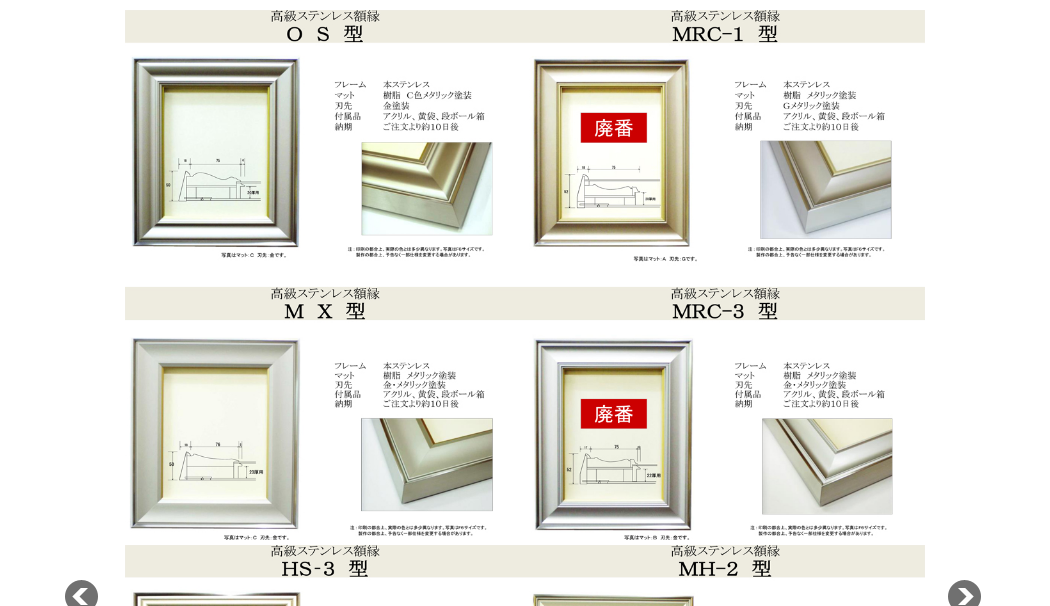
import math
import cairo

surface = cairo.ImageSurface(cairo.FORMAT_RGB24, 1050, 606)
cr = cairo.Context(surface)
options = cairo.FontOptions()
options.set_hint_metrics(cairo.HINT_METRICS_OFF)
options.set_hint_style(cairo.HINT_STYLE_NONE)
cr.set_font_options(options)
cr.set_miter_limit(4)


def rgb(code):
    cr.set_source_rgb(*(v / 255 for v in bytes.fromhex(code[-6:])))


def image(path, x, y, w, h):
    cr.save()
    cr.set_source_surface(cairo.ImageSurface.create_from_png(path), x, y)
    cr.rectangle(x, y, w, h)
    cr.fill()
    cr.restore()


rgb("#ffffff")
cr.paint()
image("img/1.png", 65, 580, 33, 26)
image("img/2.png", 125, 10, 800, 530)
image("img/3.png", 125, 545, 800, 61)
image("img/4.png", 948, 580, 33, 26)
surface.write_to_png("page.png")
